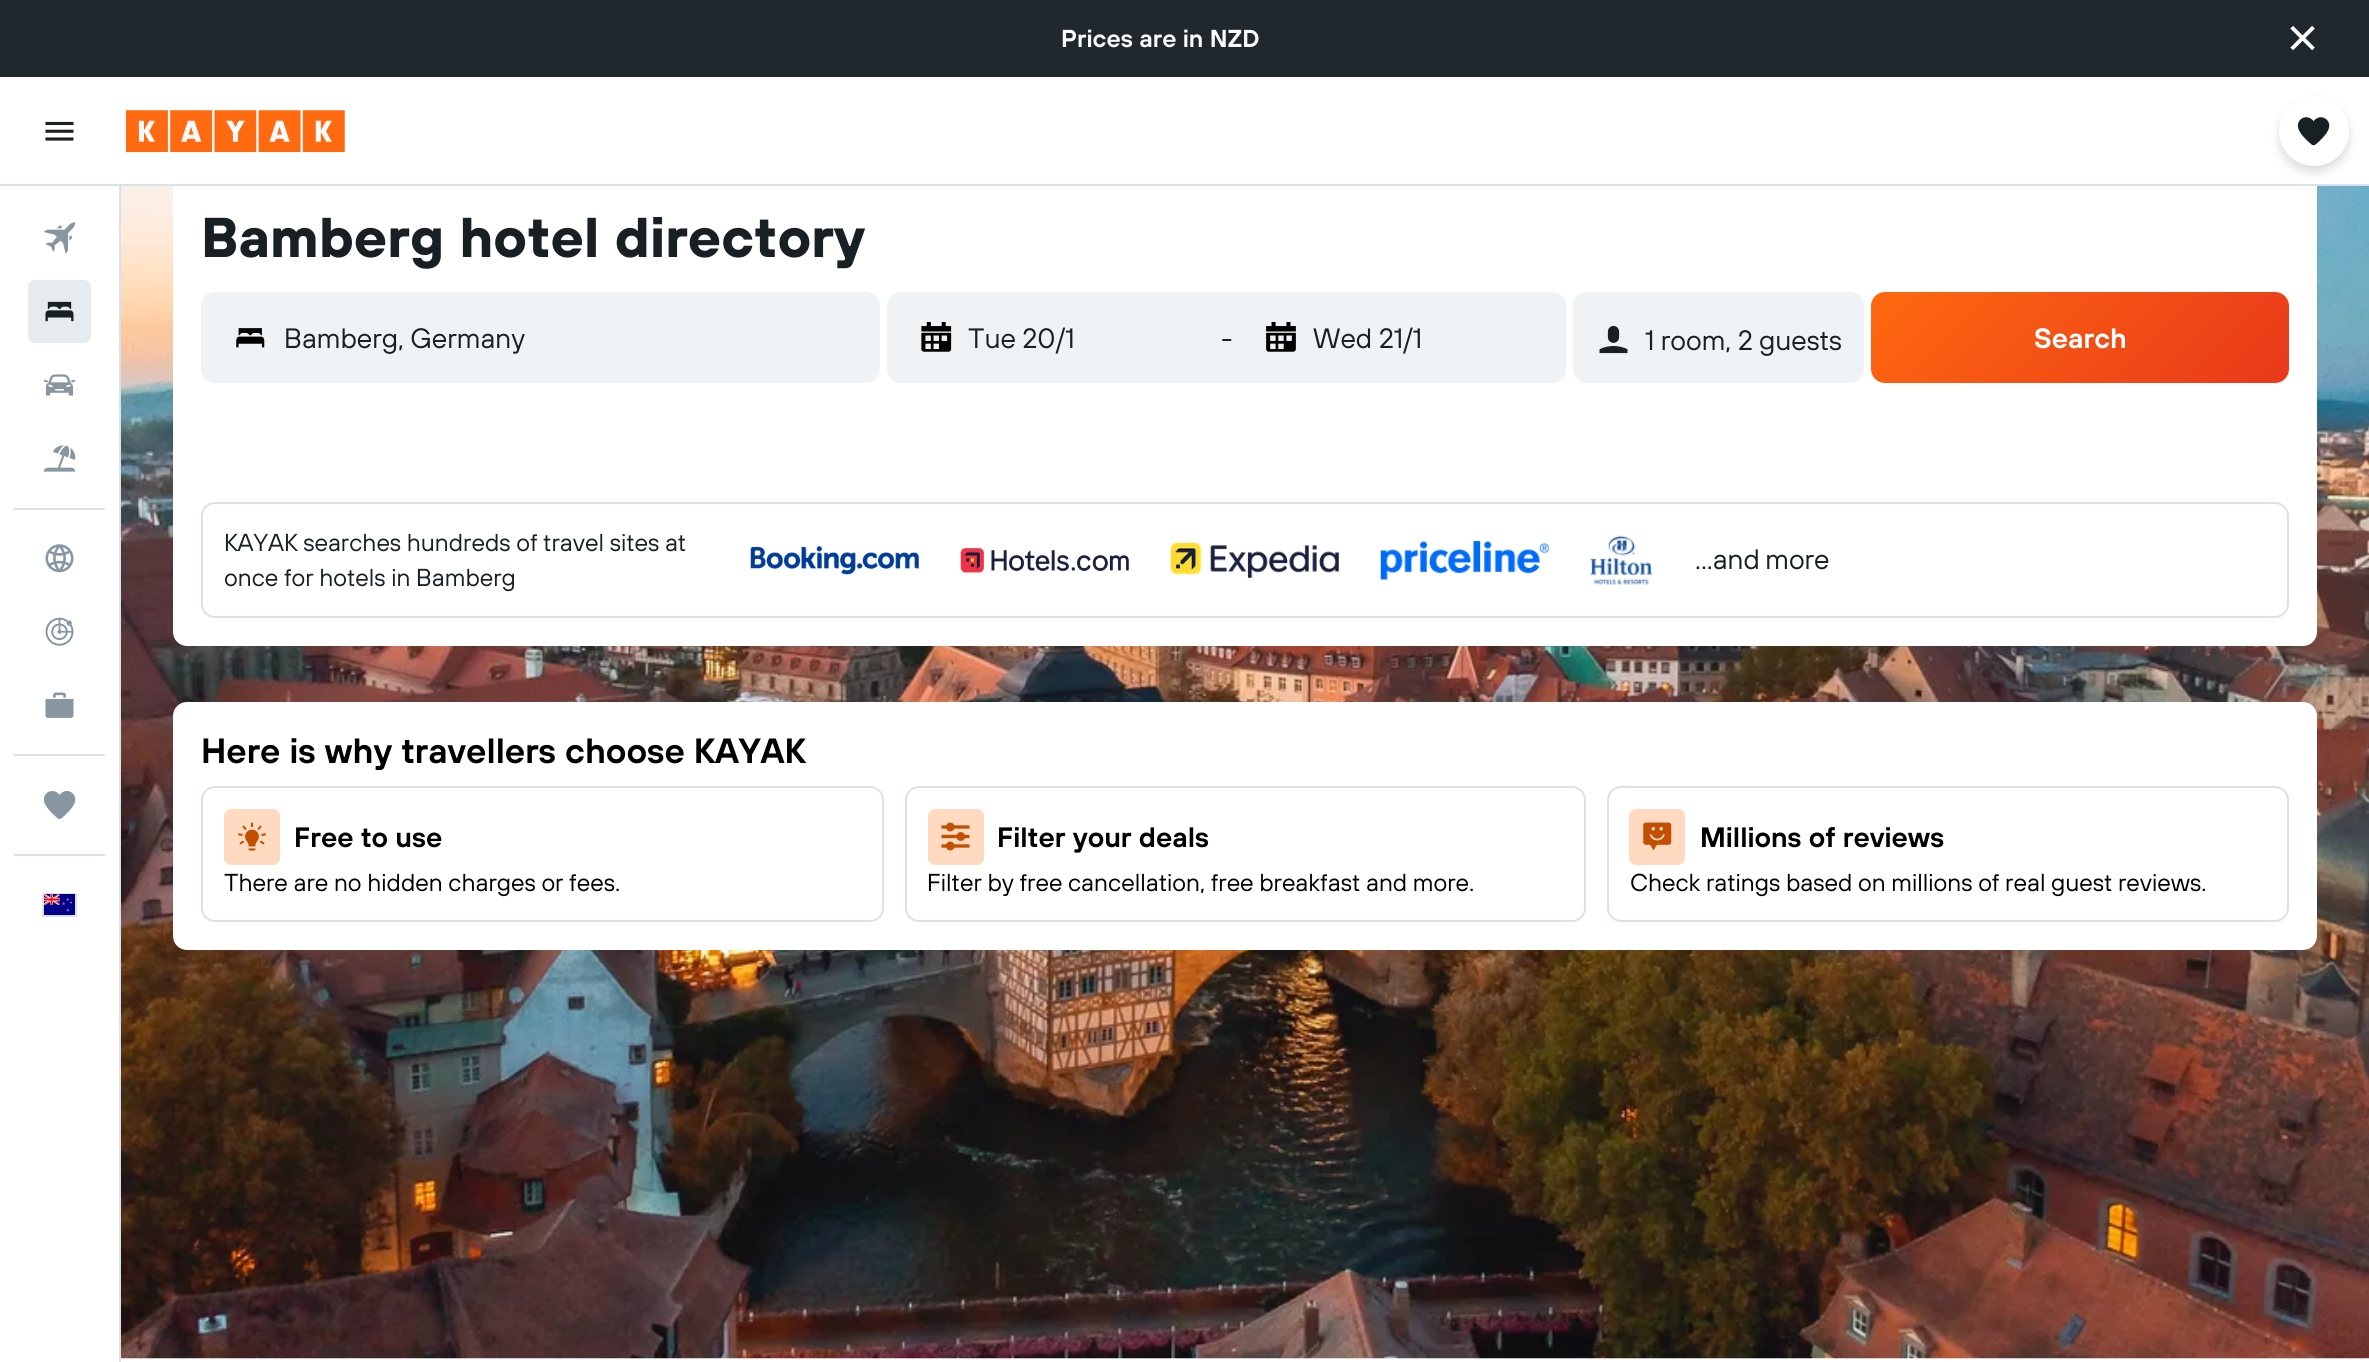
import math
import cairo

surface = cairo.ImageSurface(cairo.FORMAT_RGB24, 2369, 1362)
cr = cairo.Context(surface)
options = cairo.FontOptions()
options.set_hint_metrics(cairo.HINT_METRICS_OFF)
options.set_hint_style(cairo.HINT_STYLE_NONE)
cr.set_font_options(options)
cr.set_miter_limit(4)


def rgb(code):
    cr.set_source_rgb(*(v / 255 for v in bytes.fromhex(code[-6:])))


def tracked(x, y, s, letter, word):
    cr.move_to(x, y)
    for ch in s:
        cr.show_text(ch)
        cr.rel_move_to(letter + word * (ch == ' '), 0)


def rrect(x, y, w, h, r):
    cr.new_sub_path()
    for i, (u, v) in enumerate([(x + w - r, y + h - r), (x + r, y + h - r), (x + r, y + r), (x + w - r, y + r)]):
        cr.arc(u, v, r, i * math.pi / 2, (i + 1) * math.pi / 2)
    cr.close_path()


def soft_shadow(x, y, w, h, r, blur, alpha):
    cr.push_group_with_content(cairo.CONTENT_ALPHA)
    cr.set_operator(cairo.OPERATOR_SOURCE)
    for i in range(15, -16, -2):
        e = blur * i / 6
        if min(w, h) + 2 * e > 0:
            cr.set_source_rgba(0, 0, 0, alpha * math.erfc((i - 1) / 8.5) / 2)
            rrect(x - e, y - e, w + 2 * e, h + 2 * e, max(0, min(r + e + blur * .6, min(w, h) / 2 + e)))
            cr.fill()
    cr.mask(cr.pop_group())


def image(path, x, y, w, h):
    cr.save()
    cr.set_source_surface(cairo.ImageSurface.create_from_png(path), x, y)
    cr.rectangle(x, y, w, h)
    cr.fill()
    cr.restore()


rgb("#ffffff")
cr.paint()
rgb("#1f282d")
cr.rectangle(0, 0, 2369, 77)
cr.fill()
image("img/1.png", 2290, 25, 25, 26)
image("img/14.png", 121, 186, 2248, 1173)
rgb("#ffffff")
rrect(173, 173, 2144, 473, 14)
cr.fill()
rgb("#d9e2e8")
cr.rectangle(0, 184, 2369, 2)
cr.fill()
image("img/2.png", 45, 121, 29, 20)
image("img/3.png", 126, 110, 219, 42)
rgb("#192024")
soft_shadow(2279, 102, 70, 70, 35, 5, 0.16)
rgb("#ffffff")
cr.arc(2314, 131, 35, 0, 2 * math.pi)
cr.fill()
image("img/4.png", 2297, 117, 33, 29)
rgb("#d9e2e8")
cr.rectangle(119, 186, 2, 1176)
cr.fill()
image("img/5.png", 44, 222, 32, 32)
rgb("#e6ebef")
rrect(28, 280, 63, 63, 7)
cr.fill()
image("img/6.png", 45, 301, 29, 21)
image("img/7.png", 43, 374, 33, 22)
image("img/8.png", 43, 445, 33, 27)
rgb("#d9e2e8")
cr.rectangle(14, 508, 91, 2)
cr.fill()
image("img/9.png", 45, 544, 29, 29)
image("img/10.png", 45, 617, 29, 29)
image("img/11.png", 45, 692, 29, 26)
cr.rectangle(14, 754, 91, 2)
cr.fill()
image("img/12.png", 43, 791, 33, 28)
cr.rectangle(14, 854, 91, 2)
cr.fill()
cr.rectangle(43, 894, 33, 22)
cr.stroke()
image("img/13.png", 44, 894, 31, 21)
rgb("#f0f3f5")
rrect(202, 293, 677, 89, 13)
cr.fill_preserve()
cr.stroke()
image("img/15.png", 236, 328, 29, 20)
rrect(887, 292, 679, 91, 14)
cr.fill()
rrect(887, 292, 335, 91, 14)
cr.fill()
image("img/16.png", 921, 322, 31, 30)
rrect(1232, 292, 334, 91, 14)
cr.fill()
image("img/17.png", 1266, 322, 30, 30)
rrect(1573, 292, 291, 91, 14)
cr.fill()
image("img/18.png", 1599, 325, 29, 29)
gradient = cairo.LinearGradient(1953, 210, 2207, 465)
gradient.add_color_stop_rgba(0, 1, 0.412, 0.059, 1)
gradient.add_color_stop_rgba(1, 0.91, 0.22, 0.106, 1)
cr.set_source(gradient)
rrect(1871, 292, 418, 91, 14)
cr.fill()
rrect(202, 503, 2086, 114, 13)
rgb("#d9e2e8")
cr.stroke()
image("img/19.png", 750, 546, 169, 29)
image("img/20.png", 960, 548, 169, 25)
image("img/21.png", 1170, 542, 169, 36)
image("img/22.png", 1380, 541, 169, 39)
image("img/23.png", 1590, 535, 62, 50)
rgb("#ffffff")
rrect(173, 702, 2144, 248, 14)
cr.fill()
rrect(202, 787, 681, 134, 13)
rgb("#d9e2e8")
cr.stroke()
rgb("#ffdac1")
rrect(224, 809, 56, 56, 7)
cr.fill()
image("img/24.png", 238, 822, 28, 29)
rrect(906, 787, 679, 134, 13)
rgb("#d9e2e8")
cr.stroke()
rgb("#ffdac1")
rrect(928, 809, 56, 56, 7)
cr.fill()
image("img/25.png", 941, 822, 29, 29)
rrect(1608, 787, 680, 134, 13)
rgb("#d9e2e8")
cr.stroke()
rgb("#ffdac1")
rrect(1629, 809, 56, 56, 7)
cr.fill()
image("img/26.png", 1643, 822, 29, 29)
cr.select_font_face("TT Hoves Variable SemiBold")
cr.set_font_size(24.5)
rgb("#f9fafb")
cr.move_to(1061, 47)
cr.show_text("Prices are in NZD")
cr.select_font_face("TT Hoves Variable", cairo.FONT_SLANT_NORMAL, cairo.FONT_WEIGHT_BOLD)
cr.set_font_size(56)
rgb("#192024")
cr.move_to(201, 257)
cr.show_text("Bamberg hotel directory")
cr.select_font_face("TT Hoves Variable")
cr.set_font_size(28)
for x, y, s in [
    (284, 348, "Bamberg, Germany"),
    (968, 348, "Tue 20/1"),
    (1221, 348, "-"),
    (1313, 348, "Wed 21/1"),
    (1645, 350, "1 room, 2 guests"),
]:
    cr.move_to(x, y)
    cr.show_text(s)
cr.select_font_face("TT Hoves Variable SemiBold")
rgb("#ffffff")
cr.move_to(2034, 348)
cr.show_text("Search")
cr.select_font_face("TT Hoves Variable")
cr.set_font_size(24.5)
rgb("#192024")
cr.move_to(224, 551)
cr.show_text("KAYAK searches hundreds of travel sites at")
cr.move_to(224, 586)
cr.show_text("once for hotels in Bamberg")
cr.set_font_size(28)
tracked(1695, 569, "...and more", 0, -1)
cr.select_font_face("TT Hoves Variable SemiBold")
cr.set_font_size(35)
rgb("#000000")
cr.move_to(201, 763)
cr.show_text("Here is why travellers choose KAYAK")
cr.set_font_size(28)
cr.move_to(294, 847)
cr.show_text("Free to use")
cr.select_font_face("TT Hoves Variable")
cr.set_font_size(24.5)
cr.move_to(224, 891)
cr.show_text("There are no hidden charges or fees.")
cr.select_font_face("TT Hoves Variable SemiBold")
cr.set_font_size(28)
cr.move_to(997, 847)
cr.show_text("Filter your deals")
cr.select_font_face("TT Hoves Variable")
cr.set_font_size(24.5)
cr.move_to(927, 891)
cr.show_text("Filter by free cancellation, free breakfast and more.")
cr.select_font_face("TT Hoves Variable SemiBold")
cr.set_font_size(28)
cr.move_to(1700, 847)
cr.show_text("Millions of reviews")
cr.select_font_face("TT Hoves Variable")
cr.set_font_size(24.5)
cr.move_to(1630, 891)
cr.show_text("Check ratings based on millions of real guest reviews.")
surface.write_to_png("page.png")
